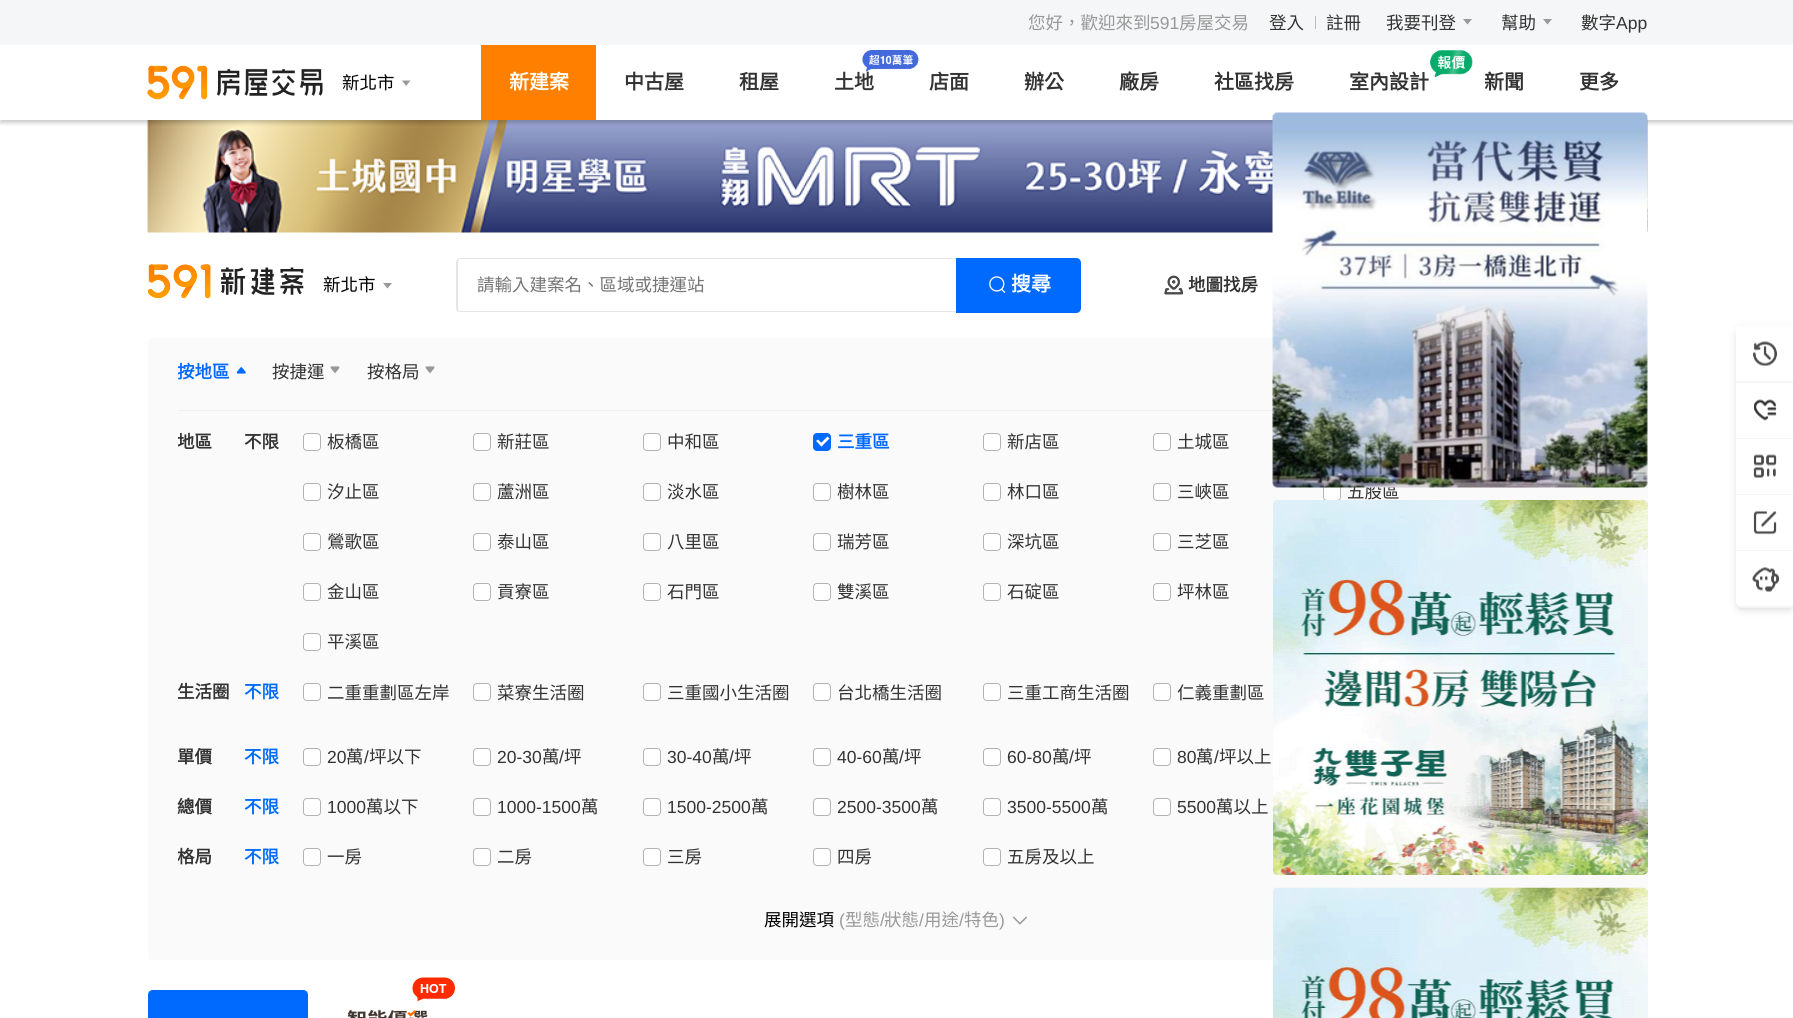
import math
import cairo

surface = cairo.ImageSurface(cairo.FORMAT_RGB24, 1793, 1018)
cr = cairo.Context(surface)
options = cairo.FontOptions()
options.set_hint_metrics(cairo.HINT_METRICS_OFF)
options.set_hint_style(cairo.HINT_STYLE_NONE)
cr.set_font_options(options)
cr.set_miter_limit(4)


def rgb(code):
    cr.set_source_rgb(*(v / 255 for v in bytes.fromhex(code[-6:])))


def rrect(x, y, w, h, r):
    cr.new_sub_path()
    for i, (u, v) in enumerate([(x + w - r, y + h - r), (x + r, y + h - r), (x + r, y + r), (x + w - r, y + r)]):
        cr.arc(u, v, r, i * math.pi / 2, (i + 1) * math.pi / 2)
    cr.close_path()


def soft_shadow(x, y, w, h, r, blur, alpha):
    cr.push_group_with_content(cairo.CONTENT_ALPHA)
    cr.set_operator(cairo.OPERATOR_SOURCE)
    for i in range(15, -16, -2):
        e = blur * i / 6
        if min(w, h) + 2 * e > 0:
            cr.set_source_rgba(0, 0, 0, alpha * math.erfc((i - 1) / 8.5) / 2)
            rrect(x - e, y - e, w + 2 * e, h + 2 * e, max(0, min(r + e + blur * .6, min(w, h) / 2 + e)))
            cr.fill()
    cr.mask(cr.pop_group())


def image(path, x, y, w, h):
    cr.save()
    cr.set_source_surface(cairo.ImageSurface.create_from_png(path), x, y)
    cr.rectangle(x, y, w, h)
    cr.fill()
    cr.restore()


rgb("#ffffff")
cr.paint()
rgb("#f5f6f7")
cr.rectangle(0, 0, 1793, 45)
cr.fill()
rgb("#bbbbbb")
cr.rectangle(1315, 16, 1, 13)
cr.fill()
rgb("#999999")
cr.set_fill_rule(cairo.FILL_RULE_EVEN_ODD)
cr.new_path()
cr.move_to(1463, 19)
cr.line_to(1467.5, 24.5)
cr.line_to(1472, 19)
cr.close_path()
cr.fill()
cr.new_path()
cr.move_to(1543, 19)
cr.line_to(1547.5, 24.5)
cr.line_to(1552, 19)
cr.close_path()
cr.fill()
image("img/9.png", 147, 120, 1501, 113)
cr.save()
cr.set_fill_rule(cairo.FILL_RULE_WINDING)
cr.rectangle(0, 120, 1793, 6)
cr.clip()
rgb("#000000")
soft_shadow(0, 48, 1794, 75, 0, 2, 0.2)
cr.restore()
image("img/1.png", 147, 65, 176, 35)
cr.new_path()
cr.move_to(402, 80.5)
cr.line_to(406, 86)
cr.line_to(410.5, 80.5)
cr.close_path()
cr.fill()
rgb("#ff8000")
cr.rectangle(481, 45, 115, 75)
cr.fill()
image("img/2.png", 862, 50, 57, 22)
image("img/3.png", 1430, 50, 43, 27)
rgb("#006aff")
cr.new_path()
cr.move_to(153, 990)
cr.line_to(303, 990)
cr.curve_to(306, 990, 308, 992, 308, 995)
cr.line_to(308, 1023)
cr.line_to(148, 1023)
cr.line_to(148, 995)
cr.curve_to(148, 992, 150, 990, 153, 990)
cr.close_path()
cr.fill()
image("img/4.png", 412, 977, 43, 25)
image("img/5.png", 348, 1010, 80, 8)
rgb("#fafafa")
rrect(148, 338, 1500, 622, 5)
cr.fill()
rgb("#ffffff")
rrect(1323.5, 483.5, 17, 17, 3.5)
cr.fill_preserve()
rgb("#b3b3b3")
cr.set_line_width(1)
cr.stroke()
image("img/7.png", 1273, 500, 375, 375)
image("img/8.png", 1273, 887, 375, 131)
image("img/10.png", 148, 264, 156, 35)
rgb("#999999")
cr.new_path()
cr.move_to(383, 283)
cr.line_to(387.5, 288.5)
cr.line_to(392, 283)
cr.close_path()
cr.fill()
rgb("#e6e6e6")
cr.new_path()
cr.move_to(461, 258)
cr.line_to(1076, 258)
cr.curve_to(1079, 258, 1081, 260, 1081, 262)
cr.line_to(1081, 308)
cr.curve_to(1081, 310, 1079, 312, 1076, 312)
cr.line_to(461, 312)
cr.curve_to(458, 312, 456, 310, 456, 308)
cr.line_to(456, 262)
cr.curve_to(456, 260, 458, 258, 461, 258)
cr.close_path()
cr.move_to(461, 259)
cr.line_to(1076, 259)
cr.curve_to(1079, 259, 1081, 260, 1081, 262)
cr.line_to(1081, 308)
cr.curve_to(1081, 310, 1079, 311, 1076, 311)
cr.line_to(461, 311)
cr.curve_to(459, 311, 458, 310, 458, 308)
cr.line_to(458, 262)
cr.curve_to(458, 260, 459, 259, 461, 259)
cr.close_path()
cr.fill()
rgb("#006aff")
cr.new_path()
cr.move_to(956, 258)
cr.line_to(1076, 258)
cr.curve_to(1079, 258, 1081, 260, 1081, 263)
cr.line_to(1081, 308)
cr.curve_to(1081, 311, 1079, 313, 1076, 313)
cr.line_to(956, 313)
cr.close_path()
cr.fill()
image("img/11.png", 989, 276, 17, 17)
image("img/12.png", 1164, 275, 20, 20)
rgb("#f0f0f0")
cr.rectangle(178, 410, 1095, 1)
cr.fill()
image("img/13.png", 236, 367, 10, 7)
image("img/14.png", 330, 366, 10, 7)
image("img/14.png", 425, 366, 10, 7)
rgb("#ffffff")
rrect(303.5, 433.5, 17, 17, 3.5)
cr.fill_preserve()
rgb("#b3b3b3")
cr.stroke()
rgb("#ffffff")
rrect(473.5, 433.5, 17, 17, 3.5)
cr.fill_preserve()
rgb("#b3b3b3")
cr.stroke()
rgb("#ffffff")
rrect(643.5, 433.5, 17, 17, 3.5)
cr.fill_preserve()
rgb("#b3b3b3")
cr.stroke()
rgb("#006aff")
rrect(813.5, 433.5, 17, 17, 3.5)
cr.fill_preserve()
cr.stroke()
rgb("#ffffff")
cr.set_fill_rule(cairo.FILL_RULE_WINDING)
cr.new_path()
cr.move_to(827.5, 436.5)
cr.line_to(829.5, 438.5)
cr.line_to(821.5, 446.5)
cr.line_to(819.5, 444.5)
cr.close_path()
cr.fill()
cr.new_path()
cr.move_to(818, 439.5)
cr.line_to(823, 444.5)
cr.line_to(821.5, 446.5)
cr.line_to(816, 441)
cr.close_path()
cr.fill()
rrect(983.5, 433.5, 17, 17, 3.5)
cr.fill_preserve()
rgb("#b3b3b3")
cr.stroke()
rgb("#ffffff")
rrect(1153.5, 433.5, 17, 17, 3.5)
cr.fill_preserve()
rgb("#b3b3b3")
cr.stroke()
rgb("#ffffff")
rrect(303.5, 483.5, 17, 17, 3.5)
cr.fill_preserve()
rgb("#b3b3b3")
cr.stroke()
rgb("#ffffff")
rrect(473.5, 483.5, 17, 17, 3.5)
cr.fill_preserve()
rgb("#b3b3b3")
cr.stroke()
rgb("#ffffff")
rrect(643.5, 483.5, 17, 17, 3.5)
cr.fill_preserve()
rgb("#b3b3b3")
cr.stroke()
rgb("#ffffff")
rrect(813.5, 483.5, 17, 17, 3.5)
cr.fill_preserve()
rgb("#b3b3b3")
cr.stroke()
rgb("#ffffff")
rrect(983.5, 483.5, 17, 17, 3.5)
cr.fill_preserve()
rgb("#b3b3b3")
cr.stroke()
rgb("#ffffff")
rrect(1153.5, 483.5, 17, 17, 3.5)
cr.fill_preserve()
rgb("#b3b3b3")
cr.stroke()
rgb("#ffffff")
rrect(303.5, 533.5, 17, 17, 3.5)
cr.fill_preserve()
rgb("#b3b3b3")
cr.stroke()
rgb("#ffffff")
rrect(473.5, 533.5, 17, 17, 3.5)
cr.fill_preserve()
rgb("#b3b3b3")
cr.stroke()
rgb("#ffffff")
rrect(643.5, 533.5, 17, 17, 3.5)
cr.fill_preserve()
rgb("#b3b3b3")
cr.stroke()
rgb("#ffffff")
rrect(813.5, 533.5, 17, 17, 3.5)
cr.fill_preserve()
rgb("#b3b3b3")
cr.stroke()
rgb("#ffffff")
rrect(983.5, 533.5, 17, 17, 3.5)
cr.fill_preserve()
rgb("#b3b3b3")
cr.stroke()
rgb("#ffffff")
rrect(1153.5, 533.5, 17, 17, 3.5)
cr.fill_preserve()
rgb("#b3b3b3")
cr.stroke()
rgb("#ffffff")
rrect(303.5, 583.5, 17, 17, 3.5)
cr.fill_preserve()
rgb("#b3b3b3")
cr.stroke()
rgb("#ffffff")
rrect(473.5, 583.5, 17, 17, 3.5)
cr.fill_preserve()
rgb("#b3b3b3")
cr.stroke()
rgb("#ffffff")
rrect(643.5, 583.5, 17, 17, 3.5)
cr.fill_preserve()
rgb("#b3b3b3")
cr.stroke()
rgb("#ffffff")
rrect(813.5, 583.5, 17, 17, 3.5)
cr.fill_preserve()
rgb("#b3b3b3")
cr.stroke()
rgb("#ffffff")
rrect(983.5, 583.5, 17, 17, 3.5)
cr.fill_preserve()
rgb("#b3b3b3")
cr.stroke()
rgb("#ffffff")
rrect(1153.5, 583.5, 17, 17, 3.5)
cr.fill_preserve()
rgb("#b3b3b3")
cr.stroke()
rgb("#ffffff")
rrect(303.5, 633.5, 17, 17, 3.5)
cr.fill_preserve()
rgb("#b3b3b3")
cr.stroke()
rgb("#ffffff")
rrect(303.5, 683.5, 17, 17, 3.5)
cr.fill_preserve()
rgb("#b3b3b3")
cr.stroke()
rgb("#ffffff")
rrect(473.5, 683.5, 17, 17, 3.5)
cr.fill_preserve()
rgb("#b3b3b3")
cr.stroke()
rgb("#ffffff")
rrect(643.5, 683.5, 17, 17, 3.5)
cr.fill_preserve()
rgb("#b3b3b3")
cr.stroke()
rgb("#ffffff")
rrect(813.5, 683.5, 17, 17, 3.5)
cr.fill_preserve()
rgb("#b3b3b3")
cr.stroke()
rgb("#ffffff")
rrect(983.5, 683.5, 17, 17, 3.5)
cr.fill_preserve()
rgb("#b3b3b3")
cr.stroke()
rgb("#ffffff")
rrect(1153.5, 683.5, 17, 17, 3.5)
cr.fill_preserve()
rgb("#b3b3b3")
cr.stroke()
rgb("#ffffff")
rrect(303.5, 748.5, 17, 17, 3.5)
cr.fill_preserve()
rgb("#b3b3b3")
cr.stroke()
rgb("#ffffff")
rrect(473.5, 748.5, 17, 17, 3.5)
cr.fill_preserve()
rgb("#b3b3b3")
cr.stroke()
rgb("#ffffff")
rrect(643.5, 748.5, 17, 17, 3.5)
cr.fill_preserve()
rgb("#b3b3b3")
cr.stroke()
rgb("#ffffff")
rrect(813.5, 748.5, 17, 17, 3.5)
cr.fill_preserve()
rgb("#b3b3b3")
cr.stroke()
rgb("#ffffff")
rrect(983.5, 748.5, 17, 17, 3.5)
cr.fill_preserve()
rgb("#b3b3b3")
cr.stroke()
rgb("#ffffff")
rrect(1153.5, 748.5, 17, 17, 3.5)
cr.fill_preserve()
rgb("#b3b3b3")
cr.stroke()
rgb("#ffffff")
rrect(303.5, 798.5, 17, 17, 3.5)
cr.fill_preserve()
rgb("#b3b3b3")
cr.stroke()
rgb("#ffffff")
rrect(473.5, 798.5, 17, 17, 3.5)
cr.fill_preserve()
rgb("#b3b3b3")
cr.stroke()
rgb("#ffffff")
rrect(643.5, 798.5, 17, 17, 3.5)
cr.fill_preserve()
rgb("#b3b3b3")
cr.stroke()
rgb("#ffffff")
rrect(813.5, 798.5, 17, 17, 3.5)
cr.fill_preserve()
rgb("#b3b3b3")
cr.stroke()
rgb("#ffffff")
rrect(983.5, 798.5, 17, 17, 3.5)
cr.fill_preserve()
rgb("#b3b3b3")
cr.stroke()
rgb("#ffffff")
rrect(1153.5, 798.5, 17, 17, 3.5)
cr.fill_preserve()
rgb("#b3b3b3")
cr.stroke()
rgb("#ffffff")
rrect(303.5, 848.5, 17, 17, 3.5)
cr.fill_preserve()
rgb("#b3b3b3")
cr.stroke()
rgb("#ffffff")
rrect(473.5, 848.5, 17, 17, 3.5)
cr.fill_preserve()
rgb("#b3b3b3")
cr.stroke()
rgb("#ffffff")
rrect(643.5, 848.5, 17, 17, 3.5)
cr.fill_preserve()
rgb("#b3b3b3")
cr.stroke()
rgb("#ffffff")
rrect(813.5, 848.5, 17, 17, 3.5)
cr.fill_preserve()
rgb("#b3b3b3")
cr.stroke()
rgb("#ffffff")
rrect(983.5, 848.5, 17, 17, 3.5)
cr.fill_preserve()
rgb("#b3b3b3")
cr.stroke()
image("img/15.png", 1012, 916, 15, 9)
rgb("#000000")
soft_shadow(1738, 330, 55, 279, 4, 2.5, 0.04)
soft_shadow(1736, 330, 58, 281, 5, 3, 0.06)
soft_shadow(1736, 328, 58, 281, 5, 6, 0.05)
rgb("#f5f5f5")
rrect(1736, 326, 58, 282, 5)
cr.fill()
rgb("#ffffff")
cr.rectangle(1736, 326, 57, 55)
cr.fill()
image("img/16.png", 1753, 341, 25, 26)
cr.rectangle(1736, 383, 57, 55)
cr.fill()
image("img/17.png", 1753, 399, 24, 22)
cr.rectangle(1736, 439, 57, 55)
cr.fill()
image("img/18.png", 1753, 454, 24, 24)
cr.rectangle(1736, 495, 57, 55)
cr.fill()
image("img/19.png", 1753, 510, 24, 25)
cr.new_path()
cr.move_to(1736, 551)
cr.line_to(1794, 551)
cr.line_to(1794, 606)
cr.line_to(1741, 606)
cr.curve_to(1738, 606, 1736, 604, 1736, 601)
cr.close_path()
cr.fill()
image("img/20.png", 1752, 567, 27, 25)
cr.select_font_face("Noto Sans CJK TC")
cr.set_font_size(17.5)
rgb("#999999")
cr.move_to(1028, 29)
cr.show_text("您好，歡迎來到")
cr.select_font_face("Liberation Sans")
cr.move_to(1150, 29)
cr.show_text("591")
cr.select_font_face("Noto Sans CJK TC")
cr.move_to(1179, 29)
cr.show_text("房屋交易")
rgb("#333333")
for x, y, s in [
    (1269, 29, "登入"),
    (1326, 29, "註冊"),
    (1386, 29, "我要刊登"),
    (1501, 29, "幫助"),
    (1581, 29, "數字"),
]:
    cr.move_to(x, y)
    cr.show_text(s)
cr.select_font_face("Liberation Sans")
cr.move_to(1616, 29)
cr.show_text("App")
cr.select_font_face("Noto Sans CJK TC")
rgb("#000000")
cr.move_to(342, 89)
cr.show_text("新北市")
cr.select_font_face("Noto Sans CJK TC", cairo.FONT_SLANT_NORMAL, cairo.FONT_WEIGHT_BOLD)
cr.set_font_size(20)
rgb("#ffffff")
cr.move_to(509, 89)
cr.show_text("新建案")
rgb("#333333")
for x, y, s in [
    (624, 89, "中古屋"),
    (739, 89, "租屋"),
    (834, 89, "土地"),
    (929, 89, "店面"),
    (1024, 89, "辦公"),
    (1119, 89, "廠房"),
    (1214, 89, "社區找房"),
    (1349, 89, "室內設計"),
    (1484, 89, "新聞"),
    (1579, 89, "更多"),
]:
    cr.move_to(x, y)
    cr.show_text(s)
cr.select_font_face("Noto Sans CJK TC")
cr.set_font_size(17.5)
rgb("#000000")
cr.move_to(323, 291)
cr.show_text("新北市")
rgb("#757575")
cr.move_to(477, 291)
cr.show_text("請輸入建案名、區域或捷運站")
cr.select_font_face("Noto Sans CJK TC", cairo.FONT_SLANT_NORMAL, cairo.FONT_WEIGHT_BOLD)
cr.set_font_size(20)
rgb("#ffffff")
cr.move_to(1011, 291)
cr.show_text("搜尋")
cr.set_font_size(17.5)
rgb("#333333")
cr.move_to(1188, 291)
cr.show_text("地圖找房")
cr.save()
cr.rectangle(178, 355, 1440, 55)
cr.clip()
rgb("#006aff")
cr.move_to(177, 378)
cr.show_text("按地區")
cr.restore()
cr.select_font_face("Noto Sans CJK TC")
cr.move_to(272, 378)
cr.show_text("按捷運")
cr.move_to(367, 378)
cr.show_text("按格局")
cr.save()
cr.rectangle(178, 431, 1440, 230)
cr.clip()
cr.select_font_face("Noto Sans CJK TC", cairo.FONT_SLANT_NORMAL, cairo.FONT_WEIGHT_BOLD)
cr.move_to(177, 448)
cr.show_text("地區")
cr.restore()
cr.select_font_face("Noto Sans CJK TC", cairo.FONT_SLANT_NORMAL, cairo.FONT_WEIGHT_BOLD)
cr.move_to(244, 448)
cr.show_text("不限")
cr.select_font_face("Noto Sans CJK TC")
for x, y, s in [
    (327, 448, "板橋區"),
    (497, 448, "新莊區"),
    (667, 448, "中和區"),
]:
    cr.move_to(x, y)
    cr.show_text(s)
cr.select_font_face("Noto Sans CJK TC", cairo.FONT_SLANT_NORMAL, cairo.FONT_WEIGHT_BOLD)
rgb("#006aff")
cr.move_to(837, 448)
cr.show_text("三重區")
cr.select_font_face("Noto Sans CJK TC")
rgb("#333333")
for x, y, s in [
    (1007, 448, "新店區"),
    (1177, 448, "土城區"),
    (327, 498, "汐止區"),
    (497, 498, "蘆洲區"),
    (667, 498, "淡水區"),
    (837, 498, "樹林區"),
    (1007, 498, "林口區"),
    (1177, 498, "三峽區"),
    (1347, 498, "五股區"),
]:
    cr.move_to(x, y)
    cr.show_text(s)
image("img/6.png", 1272, 112, 376, 376)
for x, y, s in [
    (327, 548, "鶯歌區"),
    (497, 548, "泰山區"),
    (667, 548, "八里區"),
    (837, 548, "瑞芳區"),
    (1007, 548, "深坑區"),
    (1177, 548, "三芝區"),
    (327, 598, "金山區"),
    (497, 598, "貢寮區"),
    (667, 598, "石門區"),
    (837, 598, "雙溪區"),
    (1007, 598, "石碇區"),
    (1177, 598, "坪林區"),
    (327, 648, "平溪區"),
]:
    cr.move_to(x, y)
    cr.show_text(s)
cr.select_font_face("Noto Sans CJK TC", cairo.FONT_SLANT_NORMAL, cairo.FONT_WEIGHT_BOLD)
cr.move_to(177, 698)
cr.show_text("生活圈")
rgb("#006aff")
cr.move_to(244, 698)
cr.show_text("不限")
cr.select_font_face("Noto Sans CJK TC")
rgb("#333333")
for x, y, s in [
    (327, 699, "二重重劃區左岸"),
    (497, 699, "菜寮生活圈"),
    (667, 699, "三重國小生活圈"),
    (837, 699, "台北橋生活圈"),
    (1007, 699, "三重工商生活圈"),
    (1177, 699, "仁義重劃區"),
]:
    cr.move_to(x, y)
    cr.show_text(s)
cr.select_font_face("Noto Sans CJK TC", cairo.FONT_SLANT_NORMAL, cairo.FONT_WEIGHT_BOLD)
cr.move_to(177, 763)
cr.show_text("單價")
rgb("#006aff")
cr.move_to(244, 763)
cr.show_text("不限")
cr.select_font_face("Liberation Sans")
rgb("#333333")
cr.move_to(327, 763)
cr.show_text("20")
cr.select_font_face("Noto Sans CJK TC")
cr.move_to(346, 763)
cr.show_text("萬")
cr.select_font_face("Liberation Sans")
cr.move_to(364, 763)
cr.show_text("/")
cr.select_font_face("Noto Sans CJK TC")
cr.move_to(369, 763)
cr.show_text("坪以下")
cr.select_font_face("Liberation Sans")
cr.move_to(497, 763)
cr.show_text("20-30")
cr.select_font_face("Noto Sans CJK TC")
cr.move_to(542, 763)
cr.show_text("萬")
cr.select_font_face("Liberation Sans")
cr.move_to(559, 763)
cr.show_text("/")
cr.select_font_face("Noto Sans CJK TC")
cr.move_to(564, 763)
cr.show_text("坪")
cr.select_font_face("Liberation Sans")
cr.move_to(667, 763)
cr.show_text("30-40")
cr.select_font_face("Noto Sans CJK TC")
cr.move_to(712, 763)
cr.show_text("萬")
cr.select_font_face("Liberation Sans")
cr.move_to(729, 763)
cr.show_text("/")
cr.select_font_face("Noto Sans CJK TC")
cr.move_to(734, 763)
cr.show_text("坪")
cr.select_font_face("Liberation Sans")
cr.move_to(837, 763)
cr.show_text("40-60")
cr.select_font_face("Noto Sans CJK TC")
cr.move_to(882, 763)
cr.show_text("萬")
cr.select_font_face("Liberation Sans")
cr.move_to(899, 763)
cr.show_text("/")
cr.select_font_face("Noto Sans CJK TC")
cr.move_to(904, 763)
cr.show_text("坪")
cr.select_font_face("Liberation Sans")
cr.move_to(1007, 763)
cr.show_text("60-80")
cr.select_font_face("Noto Sans CJK TC")
cr.move_to(1052, 763)
cr.show_text("萬")
cr.select_font_face("Liberation Sans")
cr.move_to(1069, 763)
cr.show_text("/")
cr.select_font_face("Noto Sans CJK TC")
cr.move_to(1074, 763)
cr.show_text("坪")
cr.select_font_face("Liberation Sans")
cr.move_to(1177, 763)
cr.show_text("80")
cr.select_font_face("Noto Sans CJK TC")
cr.move_to(1196, 763)
cr.show_text("萬")
cr.select_font_face("Liberation Sans")
cr.move_to(1214, 763)
cr.show_text("/")
cr.select_font_face("Noto Sans CJK TC")
cr.move_to(1219, 763)
cr.show_text("坪以上")
cr.select_font_face("Noto Sans CJK TC", cairo.FONT_SLANT_NORMAL, cairo.FONT_WEIGHT_BOLD)
cr.move_to(177, 813)
cr.show_text("總價")
rgb("#006aff")
cr.move_to(244, 813)
cr.show_text("不限")
cr.select_font_face("Liberation Sans")
rgb("#333333")
cr.move_to(327, 813)
cr.show_text("1000")
cr.select_font_face("Noto Sans CJK TC")
cr.move_to(366, 813)
cr.show_text("萬以下")
cr.select_font_face("Liberation Sans")
cr.move_to(497, 813)
cr.show_text("1000-1500")
cr.select_font_face("Noto Sans CJK TC")
cr.move_to(581, 813)
cr.show_text("萬")
cr.select_font_face("Liberation Sans")
cr.move_to(667, 813)
cr.show_text("1500-2500")
cr.select_font_face("Noto Sans CJK TC")
cr.move_to(751, 813)
cr.show_text("萬")
cr.select_font_face("Liberation Sans")
cr.move_to(837, 813)
cr.show_text("2500-3500")
cr.select_font_face("Noto Sans CJK TC")
cr.move_to(921, 813)
cr.show_text("萬")
cr.select_font_face("Liberation Sans")
cr.move_to(1007, 813)
cr.show_text("3500-5500")
cr.select_font_face("Noto Sans CJK TC")
cr.move_to(1091, 813)
cr.show_text("萬")
cr.select_font_face("Liberation Sans")
cr.move_to(1177, 813)
cr.show_text("5500")
cr.select_font_face("Noto Sans CJK TC")
cr.move_to(1216, 813)
cr.show_text("萬以上")
cr.save()
cr.rectangle(178, 846, 1440, 30)
cr.clip()
cr.select_font_face("Noto Sans CJK TC", cairo.FONT_SLANT_NORMAL, cairo.FONT_WEIGHT_BOLD)
cr.move_to(177, 863)
cr.show_text("格局")
cr.restore()
cr.select_font_face("Noto Sans CJK TC", cairo.FONT_SLANT_NORMAL, cairo.FONT_WEIGHT_BOLD)
rgb("#006aff")
cr.move_to(244, 863)
cr.show_text("不限")
cr.select_font_face("Noto Sans CJK TC")
rgb("#333333")
for x, y, s in [
    (327, 863, "一房"),
    (497, 863, "二房"),
    (667, 863, "三房"),
    (837, 863, "四房"),
    (1007, 863, "五房及以上"),
]:
    cr.move_to(x, y)
    cr.show_text(s)
rgb("#000000")
cr.move_to(764, 926)
cr.show_text("展開選項")
cr.select_font_face("Liberation Sans")
rgb("#999999")
cr.move_to(839, 926)
cr.show_text("(")
cr.select_font_face("Noto Sans CJK TC")
cr.move_to(845, 926)
cr.show_text("型態")
cr.select_font_face("Liberation Sans")
cr.move_to(880, 926)
cr.show_text("/")
cr.select_font_face("Noto Sans CJK TC")
cr.move_to(884, 926)
cr.show_text("狀態")
cr.select_font_face("Liberation Sans")
cr.move_to(919, 926)
cr.show_text("/")
cr.select_font_face("Noto Sans CJK TC")
cr.move_to(924, 926)
cr.show_text("用途")
cr.select_font_face("Liberation Sans")
cr.move_to(959, 926)
cr.show_text("/")
cr.select_font_face("Noto Sans CJK TC")
cr.move_to(964, 926)
cr.show_text("特色")
cr.select_font_face("Liberation Sans")
cr.move_to(999, 926)
cr.show_text(")")
surface.write_to_png("page.png")
